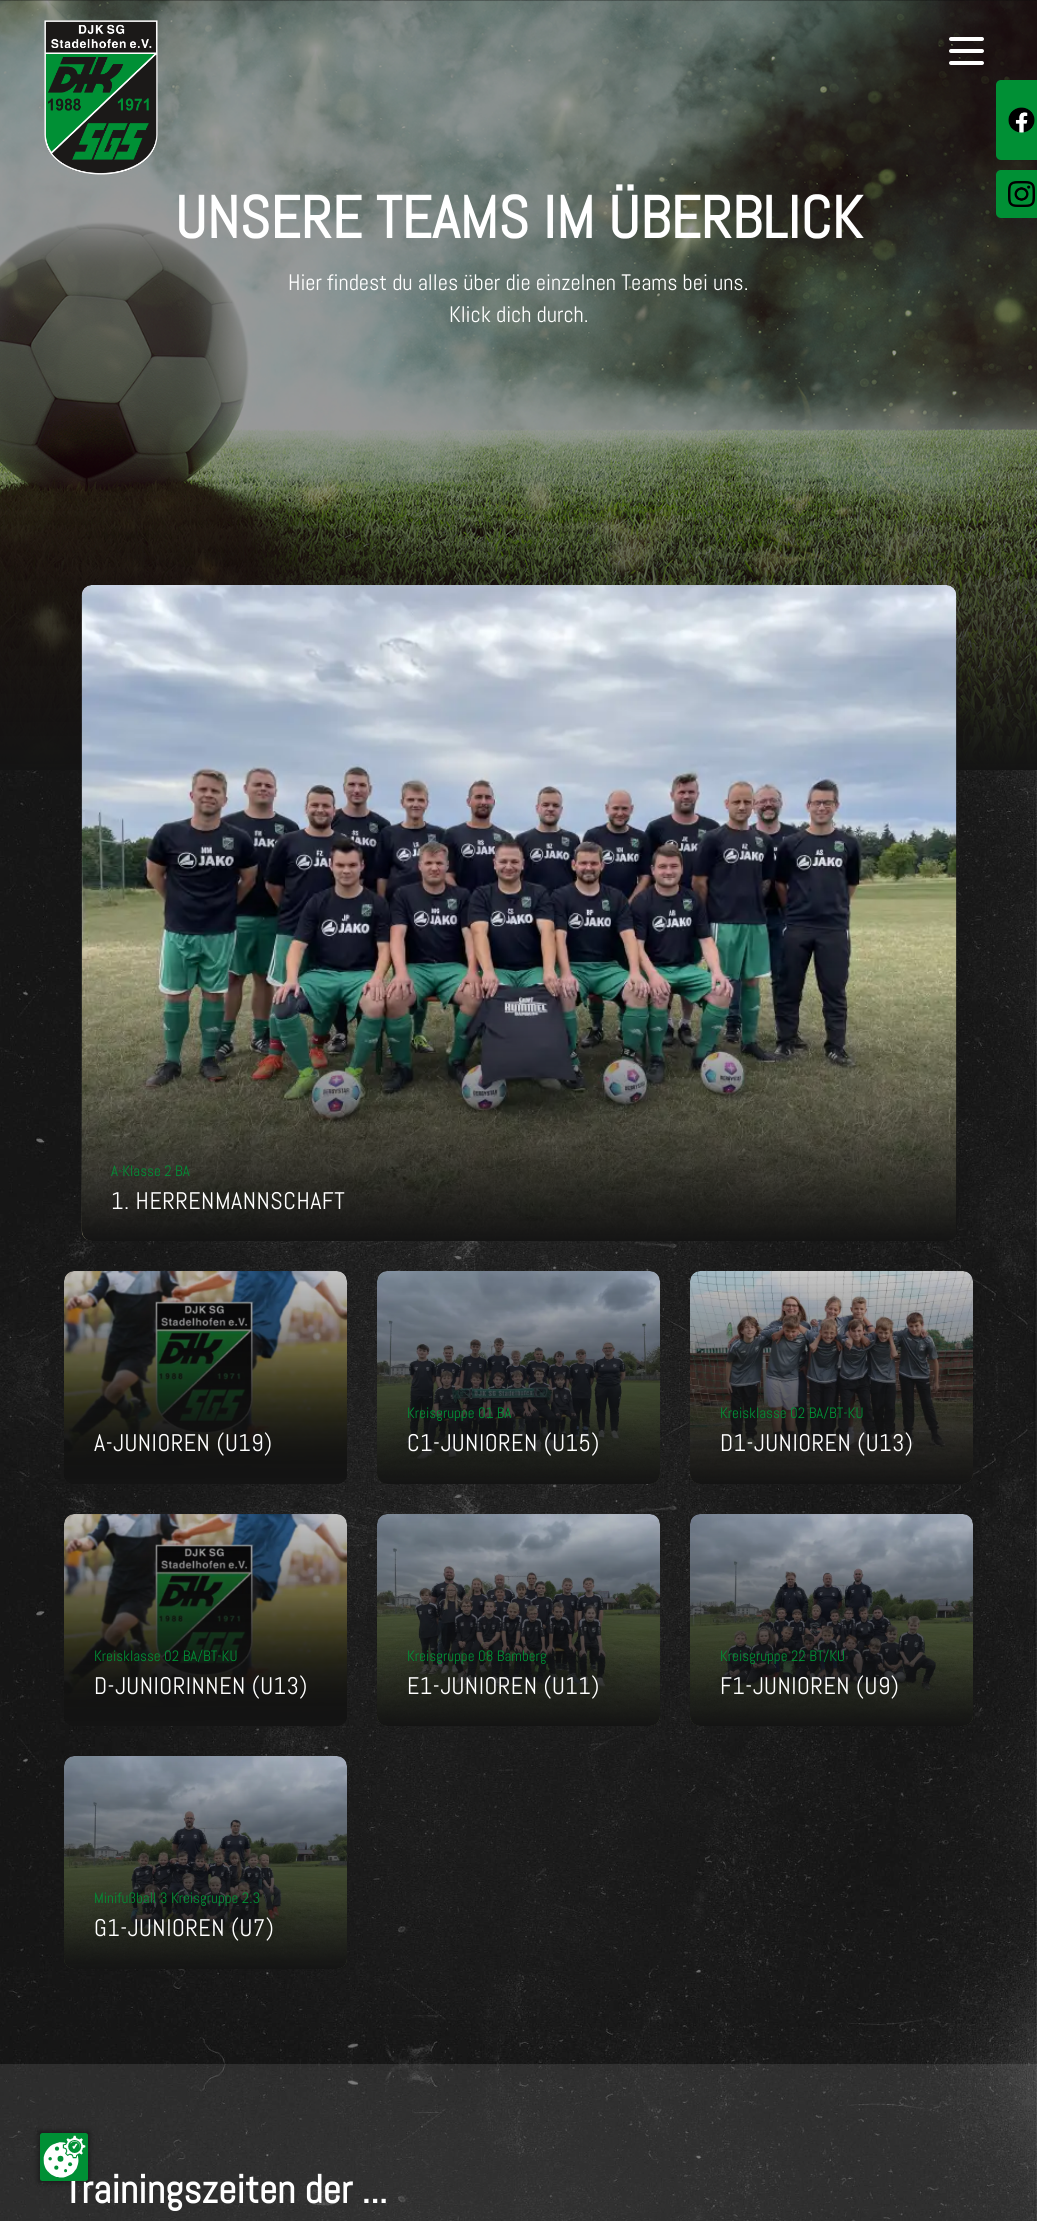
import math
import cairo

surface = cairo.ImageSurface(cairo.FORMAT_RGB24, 1037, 2221)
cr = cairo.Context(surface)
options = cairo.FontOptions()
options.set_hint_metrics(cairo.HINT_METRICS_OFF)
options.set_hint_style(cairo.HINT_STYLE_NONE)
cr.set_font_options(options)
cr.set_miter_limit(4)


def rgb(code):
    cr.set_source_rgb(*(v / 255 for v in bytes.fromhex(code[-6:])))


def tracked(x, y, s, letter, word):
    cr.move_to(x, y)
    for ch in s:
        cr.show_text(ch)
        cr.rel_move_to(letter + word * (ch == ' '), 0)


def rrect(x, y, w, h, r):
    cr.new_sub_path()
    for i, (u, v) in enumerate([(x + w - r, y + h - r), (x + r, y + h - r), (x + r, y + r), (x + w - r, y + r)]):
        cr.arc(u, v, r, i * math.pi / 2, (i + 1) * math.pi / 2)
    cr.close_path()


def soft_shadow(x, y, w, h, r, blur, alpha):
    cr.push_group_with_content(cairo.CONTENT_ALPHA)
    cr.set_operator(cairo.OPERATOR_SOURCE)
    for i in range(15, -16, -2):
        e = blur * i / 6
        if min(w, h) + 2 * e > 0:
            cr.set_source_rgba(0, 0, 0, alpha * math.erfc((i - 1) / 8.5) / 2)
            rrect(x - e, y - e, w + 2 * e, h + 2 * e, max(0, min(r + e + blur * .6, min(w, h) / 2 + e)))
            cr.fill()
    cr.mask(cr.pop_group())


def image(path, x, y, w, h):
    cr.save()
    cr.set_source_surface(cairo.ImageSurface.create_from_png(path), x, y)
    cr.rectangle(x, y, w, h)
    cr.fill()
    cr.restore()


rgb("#ffffff")
cr.paint()
image("img/1.png", 0, 0, 1037, 2221)
image("img/5.png", 0, 0, 1037, 768)
image("img/2.png", 44, 20, 114, 155)
rgb("#ffffff")
rrect(949, 37, 35, 4, 2)
cr.fill()
rrect(949, 49, 35, 4, 2)
cr.fill()
rrect(949, 61, 35, 4, 2)
cr.fill()
rgb("#009035")
rrect(996, 80, 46, 80, 5)
cr.fill()
image("img/3.png", 1008, 107, 27, 26)
rrect(996, 170, 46, 48, 5)
cr.fill()
image("img/4.png", 1008, 181, 27, 26)
gradient = cairo.LinearGradient(519, 490, 519, 770)
gradient.add_color_stop_rgba(0, 0.078, 0.078, 0.078, 0)
gradient.add_color_stop_rgba(1, 0.078, 0.078, 0.078, 1)
cr.set_source(gradient)
cr.rectangle(0, 496, 1037, 274)
cr.fill()
image("img/6.png", 81, 585, 876, 656)
gradient = cairo.LinearGradient(519, 961, 519, 1241)
gradient.add_color_stop_rgba(0, 0.078, 0.078, 0.078, 0)
gradient.add_color_stop_rgba(1, 0.078, 0.078, 0.078, 1)
cr.set_source(gradient)
rrect(82, 961, 875, 280, 10)
cr.fill()
image("img/7.png", 64, 1271, 283, 213)
gradient = cairo.LinearGradient(205, 1204, 206, 1484)
gradient.add_color_stop_rgba(0, 0.078, 0.078, 0.078, 0)
gradient.add_color_stop_rgba(1, 0.078, 0.078, 0.078, 1)
cr.set_source(gradient)
rrect(64, 1271, 283, 213, 10)
cr.fill()
image("img/8.png", 377, 1271, 283, 213)
gradient = cairo.LinearGradient(519, 1204, 519, 1484)
gradient.add_color_stop_rgba(0, 0.078, 0.078, 0.078, 0)
gradient.add_color_stop_rgba(1, 0.078, 0.078, 0.078, 1)
cr.set_source(gradient)
rrect(377, 1271, 283, 213, 10)
cr.fill()
image("img/9.png", 690, 1271, 283, 213)
gradient = cairo.LinearGradient(832, 1204, 832, 1484)
gradient.add_color_stop_rgba(0, 0.078, 0.078, 0.078, 0)
gradient.add_color_stop_rgba(1, 0.078, 0.078, 0.078, 1)
cr.set_source(gradient)
rrect(690, 1271, 283, 213, 10)
cr.fill()
image("img/10.png", 64, 1514, 283, 212)
gradient = cairo.LinearGradient(205, 1446, 206, 1726)
gradient.add_color_stop_rgba(0, 0.078, 0.078, 0.078, 0)
gradient.add_color_stop_rgba(1, 0.078, 0.078, 0.078, 1)
cr.set_source(gradient)
rrect(64, 1514, 283, 212, 10)
cr.fill()
image("img/11.png", 377, 1514, 283, 212)
gradient = cairo.LinearGradient(519, 1446, 519, 1726)
gradient.add_color_stop_rgba(0, 0.078, 0.078, 0.078, 0)
gradient.add_color_stop_rgba(1, 0.078, 0.078, 0.078, 1)
cr.set_source(gradient)
rrect(377, 1514, 283, 212, 10)
cr.fill()
image("img/12.png", 690, 1514, 283, 212)
gradient = cairo.LinearGradient(832, 1446, 832, 1726)
gradient.add_color_stop_rgba(0, 0.078, 0.078, 0.078, 0)
gradient.add_color_stop_rgba(1, 0.078, 0.078, 0.078, 1)
cr.set_source(gradient)
rrect(690, 1514, 283, 212, 10)
cr.fill()
image("img/13.png", 64, 1756, 283, 213)
gradient = cairo.LinearGradient(205, 1689, 206, 1969)
gradient.add_color_stop_rgba(0, 0.078, 0.078, 0.078, 0)
gradient.add_color_stop_rgba(1, 0.078, 0.078, 0.078, 1)
cr.set_source(gradient)
rrect(64, 1756, 283, 213, 10)
cr.fill()
cr.set_source_rgba(1, 1, 1, 0.1)
cr.rectangle(0, 2064, 1037, 157)
cr.fill()
rgb("#000000")
soft_shadow(39, 2132, 50, 50, 0, 3, 0.5)
cr.select_font_face("Abel", cairo.FONT_SLANT_NORMAL, cairo.FONT_WEIGHT_BOLD)
cr.set_font_size(59.25)
rgb("#ffffff")
cr.move_to(175, 238)
cr.show_text("UNSERE TEAMS IM ÜBERBLICK")
cr.select_font_face("Abel")
cr.set_font_size(22.4)
cr.move_to(288, 290)
cr.show_text("Hier findest du alles über die einzelnen Teams bei uns.")
cr.move_to(449, 322)
cr.show_text("Klick dich durch.")
cr.set_font_size(15)
rgb("#009035")
cr.move_to(111, 1176)
cr.show_text("A-Klasse 2 BA")
cr.set_font_size(24)
rgb("#ffffff")
tracked(111, 1209, "1. HERRENMANNSCHAFT", 0.5, 0)
tracked(94, 1451, "A-JUNIOREN (U19)", 0.5, 0)
cr.set_font_size(15)
rgb("#009035")
cr.move_to(407, 1418)
cr.show_text("Kreisgruppe 01 BA")
cr.set_font_size(24)
rgb("#ffffff")
tracked(407, 1451, "C1-JUNIOREN (U15)", 0.5, 0)
cr.set_font_size(15)
rgb("#009035")
cr.move_to(720, 1418)
cr.show_text("Kreisklasse 02 BA/BT-KU")
cr.set_font_size(24)
rgb("#ffffff")
tracked(720, 1451, "D1-JUNIOREN (U13)", 0.5, 0)
cr.set_font_size(15)
rgb("#009035")
cr.move_to(94, 1661)
cr.show_text("Kreisklasse 02 BA/BT-KU")
cr.set_font_size(24)
rgb("#ffffff")
tracked(94, 1694, "D-JUNIORINNEN (U13)", 0.5, 0)
cr.set_font_size(15)
rgb("#009035")
cr.move_to(407, 1661)
cr.show_text("Kreisgruppe 08 Bamberg")
cr.set_font_size(24)
rgb("#ffffff")
tracked(407, 1694, "E1-JUNIOREN (U11)", 0.5, 0)
cr.set_font_size(15)
rgb("#009035")
cr.move_to(720, 1661)
cr.show_text("Kreisgruppe 22 BT/KU")
cr.set_font_size(24)
rgb("#ffffff")
tracked(720, 1694, "F1-JUNIOREN (U9)", 0.5, 0)
cr.set_font_size(15)
rgb("#009035")
cr.move_to(94, 1903)
cr.show_text("Minifußball 3 Kreisgruppe 2.3")
cr.set_font_size(24)
rgb("#ffffff")
tracked(94, 1936, "G1-JUNIOREN (U7)", 0.5, 0)
cr.select_font_face("Abel", cairo.FONT_SLANT_NORMAL, cairo.FONT_WEIGHT_BOLD)
cr.set_font_size(40)
cr.move_to(64, 2203)
cr.show_text("Trainingszeiten der ...")
image("img/14.png", 40, 2133, 48, 48)
surface.write_to_png("page.png")
